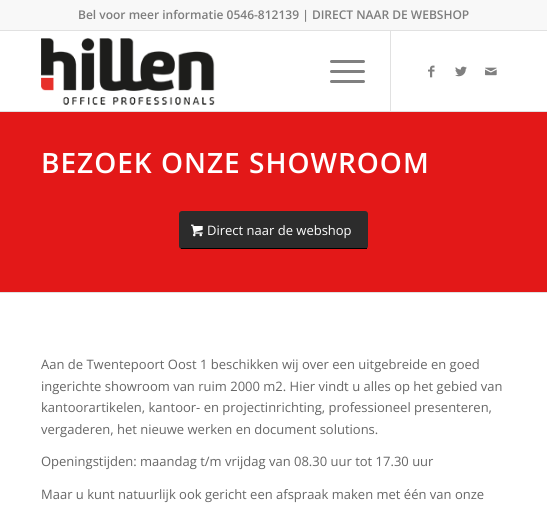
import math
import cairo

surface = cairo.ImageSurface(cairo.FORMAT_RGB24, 547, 507)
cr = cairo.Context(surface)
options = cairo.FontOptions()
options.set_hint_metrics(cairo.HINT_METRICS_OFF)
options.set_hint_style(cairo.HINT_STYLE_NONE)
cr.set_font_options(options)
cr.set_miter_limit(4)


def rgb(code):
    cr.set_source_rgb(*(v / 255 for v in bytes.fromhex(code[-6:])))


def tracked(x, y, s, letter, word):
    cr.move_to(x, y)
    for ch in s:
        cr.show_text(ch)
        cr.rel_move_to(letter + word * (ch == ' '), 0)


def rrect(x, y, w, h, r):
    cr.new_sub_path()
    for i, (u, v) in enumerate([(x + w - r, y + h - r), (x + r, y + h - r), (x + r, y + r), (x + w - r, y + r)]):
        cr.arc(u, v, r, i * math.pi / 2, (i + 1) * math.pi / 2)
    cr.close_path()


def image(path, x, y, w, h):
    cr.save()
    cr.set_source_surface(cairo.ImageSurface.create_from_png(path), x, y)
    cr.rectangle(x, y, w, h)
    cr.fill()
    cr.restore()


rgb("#ffffff")
cr.paint()
for x, y, w, h, color in [
    (0, 0, 547, 30, "#f8f8f8"),
    (0, 30, 547, 1, "#e1e1e1"),
    (0, 111, 547, 1, "#e1e1e1"),
]:
    rgb(color)
    cr.rectangle(x, y, w, h)
    cr.fill()
image("img/1.png", 41, 38, 174, 67)
cr.rectangle(390, 31, 1, 80)
cr.fill()
rgb("#808080")
rrect(330, 70, 35, 3, 1.5)
cr.fill()
rrect(330, 60, 35, 3, 1.5)
cr.fill()
rrect(330, 80, 35, 3, 1.5)
cr.fill()
image("img/2.png", 428, 65, 7, 13)
image("img/3.png", 455, 66, 12, 11)
image("img/4.png", 485, 67, 12, 9)
rgb("#e31818")
cr.rectangle(0, 112, 547, 180)
cr.fill()
rgb("#2c2c2c")
rrect(179, 211, 189, 38, 3)
cr.fill()
rgb("#000000")
cr.rectangle(181, 248, 186, 1)
cr.fill()
image("img/5.png", 191, 224, 12, 13)
rgb("#e1e1e1")
cr.rectangle(0, 292, 547, 1)
cr.fill()
cr.select_font_face("Open Sans SemiBold")
cr.set_font_size(12)
rgb("#7d7d7d")
cr.move_to(78, 19)
cr.show_text("Bel voor meer informatie 0546-812139 | DIRECT NAAR DE WEBSHOP")
cr.set_font_size(28)
rgb("#ffffff")
tracked(41, 173, "BEZOEK ONZE SHOWROOM", 1, 0)
cr.select_font_face("Open Sans")
cr.set_font_size(13)
cr.move_to(207, 235)
cr.show_text("Direct naar de webshop")
rgb("#666666")
for x, y, s in [
    (41, 369, "Aan de Twentepoort Oost 1 beschikken wij over een uitgebreide en goed"),
    (41, 391, "ingerichte showroom van ruim 2000 m2. Hier vindt u alles op het gebied van"),
    (41, 412, "kantoorartikelen, kantoor- en projectinrichting, professioneel presenteren,"),
    (41, 434, "vergaderen, het nieuwe werken en document solutions."),
    (41, 466, "Openingstijden: maandag t/m vrijdag van 08.30 uur tot 17.30 uur"),
    (41, 499, "Maar u kunt natuurlijk ook gericht een afspraak maken met één van onze"),
]:
    cr.move_to(x, y)
    cr.show_text(s)
surface.write_to_png("page.png")
